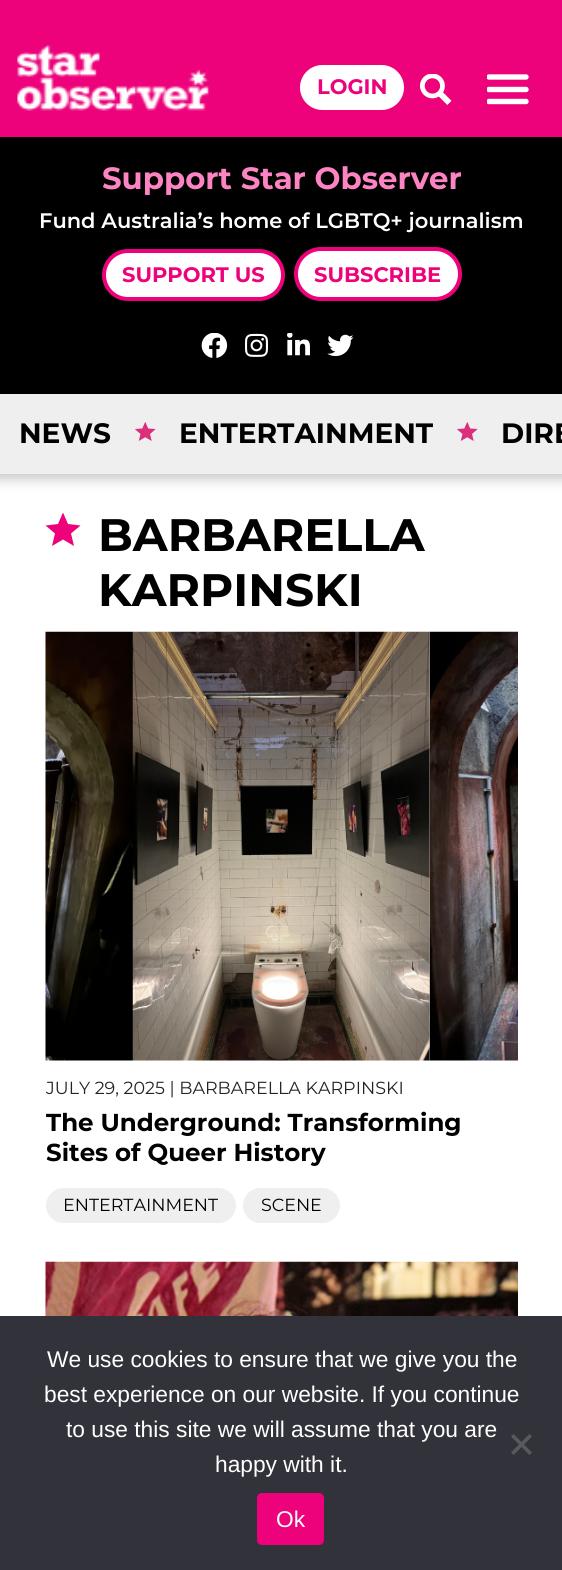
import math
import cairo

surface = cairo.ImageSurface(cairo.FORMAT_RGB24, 562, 1570)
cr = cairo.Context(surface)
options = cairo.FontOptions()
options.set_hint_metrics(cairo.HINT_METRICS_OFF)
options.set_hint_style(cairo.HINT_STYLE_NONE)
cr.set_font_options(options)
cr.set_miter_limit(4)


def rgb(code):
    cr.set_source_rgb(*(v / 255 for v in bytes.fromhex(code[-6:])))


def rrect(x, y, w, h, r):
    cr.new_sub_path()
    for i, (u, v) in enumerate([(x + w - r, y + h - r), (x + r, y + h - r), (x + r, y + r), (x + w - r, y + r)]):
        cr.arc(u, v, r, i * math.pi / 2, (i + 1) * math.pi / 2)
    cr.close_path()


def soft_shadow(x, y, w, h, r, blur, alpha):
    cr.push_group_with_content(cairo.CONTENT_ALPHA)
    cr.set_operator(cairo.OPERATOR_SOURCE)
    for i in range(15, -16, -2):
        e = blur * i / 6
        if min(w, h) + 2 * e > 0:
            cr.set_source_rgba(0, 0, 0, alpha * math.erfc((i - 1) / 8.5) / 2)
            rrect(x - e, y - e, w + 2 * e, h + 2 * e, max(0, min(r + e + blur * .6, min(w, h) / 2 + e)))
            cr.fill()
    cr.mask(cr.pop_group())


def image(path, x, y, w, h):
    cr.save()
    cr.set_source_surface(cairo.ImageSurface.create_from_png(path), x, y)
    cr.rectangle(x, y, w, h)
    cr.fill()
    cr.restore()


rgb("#ffffff")
cr.paint()
rgb("#ed027b")
cr.rectangle(0, 0, 562, 137)
cr.fill()
image("img/1.png", 17, 45, 192, 66)
rgb("#ffffff")
rrect(298, 63, 108, 49, 24.5)
cr.fill_preserve()
rgb("#ed027b")
cr.set_line_width(4)
cr.stroke()
image("img/2.png", 420, 74, 32, 31)
cr.save()
cr.rectangle(487, 68, 42, 42)
cr.clip()
cr.new_path()
cr.move_to(489, 89.5)
cr.line_to(526, 89.5)
cr.move_to(489, 77)
cr.line_to(526, 77)
cr.move_to(489, 101.5)
cr.line_to(526, 101.5)
rgb("#ffffff")
cr.set_line_width(5.4)
cr.set_line_cap(cairo.LINE_CAP_ROUND)
cr.set_line_join(cairo.LINE_JOIN_ROUND)
cr.stroke()
cr.restore()
rgb("#000000")
soft_shadow(-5, 389, 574, 91, 0, 6, 0.2)
rgb("#000000")
cr.rectangle(0, 137, 562, 257)
cr.fill()
rgb("#ffffff")
rrect(104, 251, 179, 48, 24)
cr.fill_preserve()
rgb("#ed027b")
cr.stroke()
rgb("#ffffff")
rrect(296, 249, 164, 50, 25)
cr.fill_preserve()
rgb("#ed027b")
cr.stroke()
image("img/3.png", 201, 333, 27, 25)
image("img/4.png", 245, 333, 23, 24)
image("img/5.png", 287, 333, 23, 23)
image("img/6.png", 327, 334, 27, 23)
rgb("#efefef")
cr.rectangle(0, 394, 562, 80)
cr.fill()
image("img/7.png", 135, 422, 21, 19)
image("img/7.png", 457, 422, 21, 19)
rgb("#ed027b")
cr.new_path()
cr.move_to(63, 539.5)
cr.line_to(74, 546)
cr.line_to(71, 533.5)
cr.line_to(80.5, 525.5)
cr.line_to(68, 524)
cr.line_to(63, 512.5)
cr.line_to(58, 524)
cr.line_to(45.5, 525.5)
cr.line_to(55, 533.5)
cr.line_to(52, 546)
cr.close_path()
cr.fill()
image("img/8.png", 45, 631, 473, 430)
rgb("#efefef")
rrect(46, 1188, 190, 35, 17.5)
cr.fill()
rrect(243, 1188, 97, 35, 17.5)
cr.fill()
image("img/9.png", 45, 1261, 473, 55)
rgb("#32323a")
cr.rectangle(0, 1316, 562, 254)
cr.fill()
rgb("#59595d")
cr.new_path()
cr.move_to(529.5, 1434)
cr.line_to(532, 1436.5)
cr.line_to(513.5, 1455)
cr.line_to(511, 1452.5)
cr.close_path()
cr.fill()
cr.new_path()
cr.move_to(511, 1436.5)
cr.line_to(513.5, 1434)
cr.line_to(532, 1452.5)
cr.line_to(529.5, 1455)
cr.close_path()
cr.fill()
rgb("#ed027b")
rrect(257, 1493, 67, 52, 5)
cr.fill()
cr.select_font_face("Montserrat", cairo.FONT_SLANT_NORMAL, cairo.FONT_WEIGHT_BOLD)
cr.set_font_size(21)
cr.move_to(317, 94)
cr.show_text("LOGIN")
cr.set_font_size(30.75)
rgb("#fd84c2")
cr.move_to(102, 189)
cr.show_text("Support Star Observer")
cr.select_font_face("Montserrat SemiBold")
cr.set_font_size(21)
rgb("#ffffff")
cr.move_to(39, 228)
cr.show_text("Fund Australia’s home of LGBTQ+ journalism")
cr.select_font_face("Montserrat", cairo.FONT_SLANT_NORMAL, cairo.FONT_WEIGHT_BOLD)
rgb("#ed027b")
cr.move_to(122, 282)
cr.show_text("SUPPORT US")
cr.move_to(314, 282)
cr.show_text("SUBSCRIBE")
cr.set_font_size(28)
rgb("#000000")
for x, y, s in [
    (19, 443, "NEWS"),
    (179, 443, "ENTERTAINMENT"),
    (501, 443, "DIRE"),
]:
    cr.move_to(x, y)
    cr.show_text(s)
cr.set_font_size(45.5)
cr.move_to(98, 551)
cr.show_text("BARBARELLA")
cr.move_to(98, 606)
cr.show_text("KARPINSKI")
cr.select_font_face("Montserrat")
cr.set_font_size(17.5)
rgb("#212529")
cr.move_to(46, 1094)
cr.show_text("JULY 29, 2025 | BARBARELLA KARPINSKI")
cr.select_font_face("Montserrat", cairo.FONT_SLANT_NORMAL, cairo.FONT_WEIGHT_BOLD)
cr.set_font_size(24.5)
rgb("#000000")
cr.move_to(46, 1131)
cr.show_text("The Underground: Transforming")
cr.move_to(46, 1161)
cr.show_text("Sites of Queer History")
cr.select_font_face("Montserrat")
cr.set_font_size(17.5)
cr.move_to(63, 1211)
cr.show_text("ENTERTAINMENT")
cr.move_to(261, 1211)
cr.show_text("SCENE")
cr.select_font_face("Liberation Sans")
cr.set_font_size(22.75)
rgb("#ffffff")
for x, y, s in [
    (47, 1367, "We use cookies to ensure that we give you the"),
    (44, 1402, "best experience on our website. If you continue"),
    (66, 1437, "to use this site we will assume that you are"),
    (215, 1472, "happy with it."),
    (276, 1527, "Ok"),
]:
    cr.move_to(x, y)
    cr.show_text(s)
surface.write_to_png("page.png")
